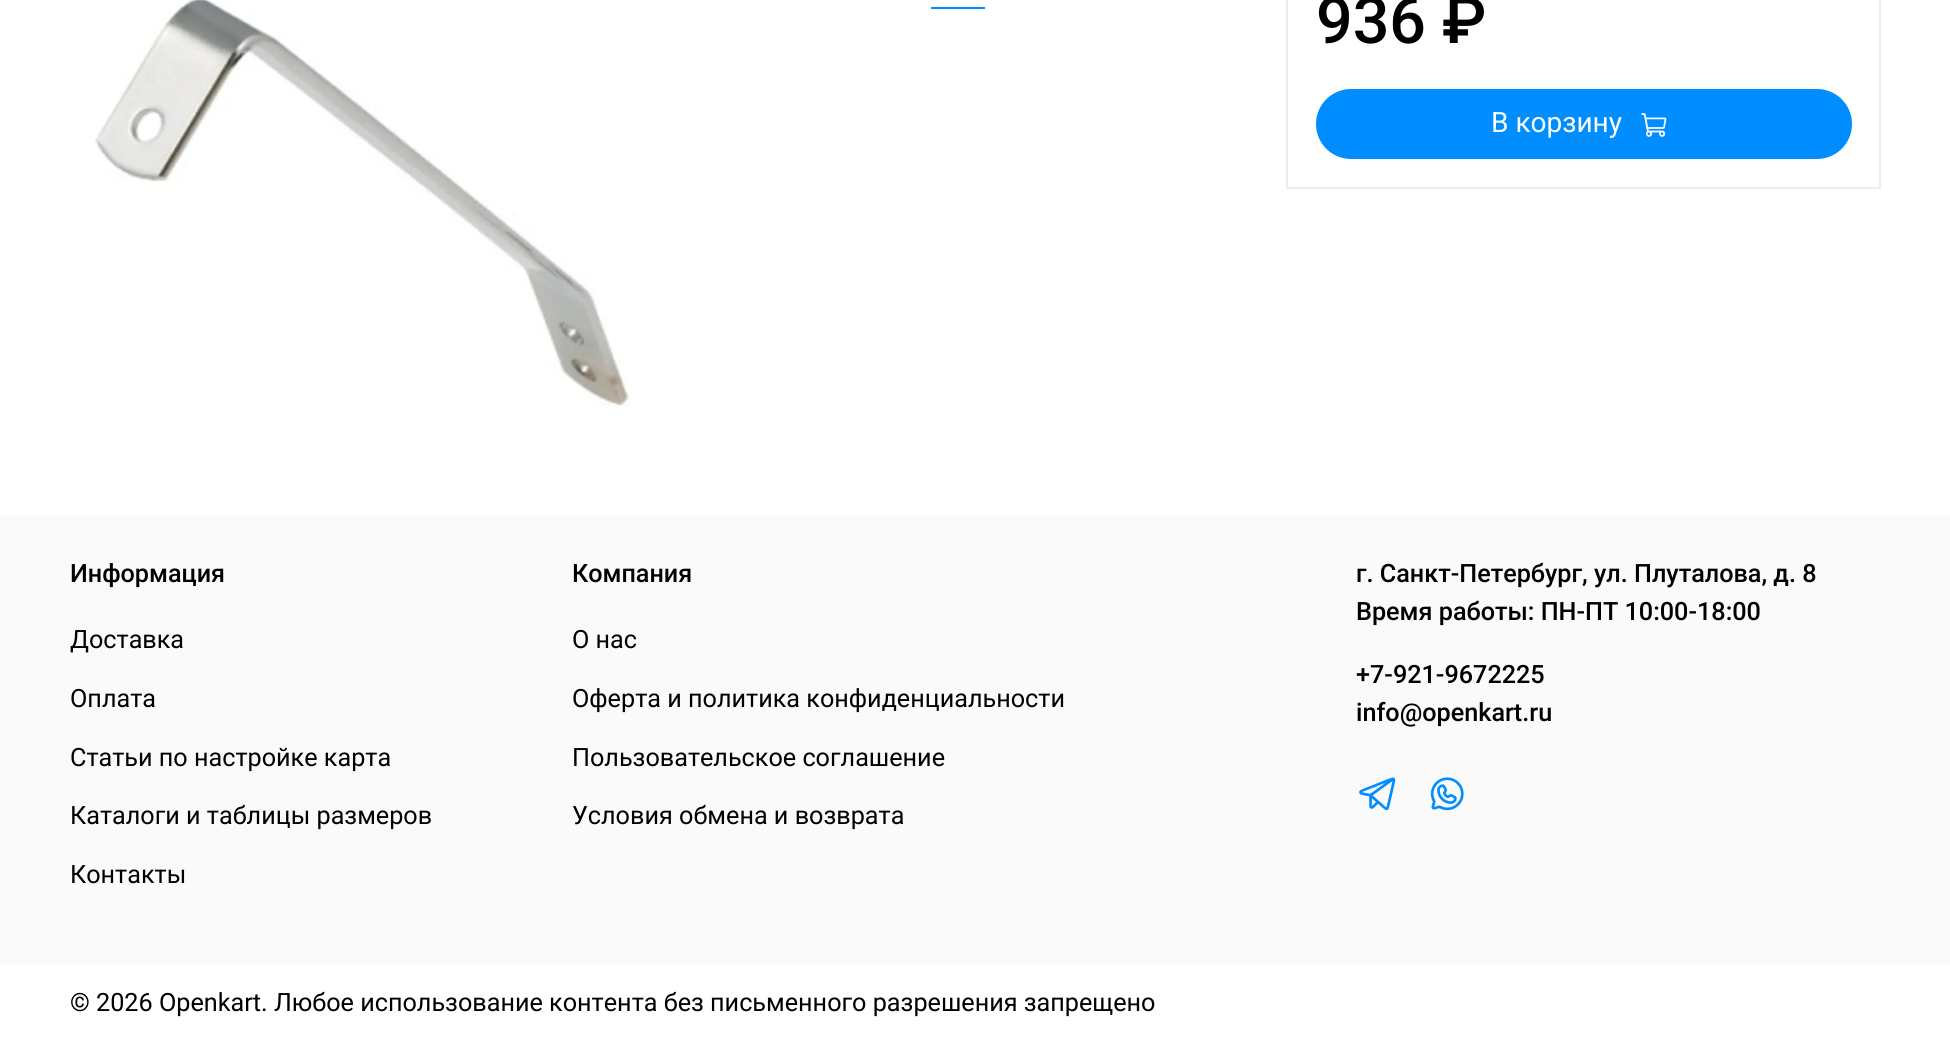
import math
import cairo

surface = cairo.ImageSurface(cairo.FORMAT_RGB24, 1950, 1041)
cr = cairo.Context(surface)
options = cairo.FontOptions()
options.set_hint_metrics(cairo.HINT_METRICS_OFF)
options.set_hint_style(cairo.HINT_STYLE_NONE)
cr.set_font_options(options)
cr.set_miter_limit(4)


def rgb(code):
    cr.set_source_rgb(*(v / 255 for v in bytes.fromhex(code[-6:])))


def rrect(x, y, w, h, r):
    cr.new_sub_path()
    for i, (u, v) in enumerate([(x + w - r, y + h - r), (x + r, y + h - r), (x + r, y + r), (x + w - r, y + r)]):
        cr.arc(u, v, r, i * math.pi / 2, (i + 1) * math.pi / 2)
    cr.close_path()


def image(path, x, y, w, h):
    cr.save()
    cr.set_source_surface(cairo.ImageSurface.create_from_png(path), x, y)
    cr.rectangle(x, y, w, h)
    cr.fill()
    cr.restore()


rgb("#ffffff")
cr.paint()
image("img/1.png", 88, 0, 543, 409)
rgb("#008dff")
cr.rectangle(931, 7, 54, 2)
cr.fill()
cr.rectangle(1287, -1, 593, 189)
rgb("#ededed")
cr.stroke()
rgb("#008dff")
rrect(1316, 89, 536, 70, 35)
cr.fill()
image("img/2.png", 1641, 113, 26, 24)
rgb("#fafafa")
cr.rectangle(0, 516, 1950, 448)
cr.fill()
image("img/3.png", 1359, 777, 37, 34)
image("img/4.png", 1430, 777, 34, 34)
cr.select_font_face("Roboto Medium")
cr.set_font_size(64.5)
rgb("#000000")
cr.move_to(1316, 43)
cr.show_text("936 ₽")
cr.select_font_face("Roboto")
cr.set_font_size(28)
rgb("#ffffff")
cr.move_to(1491, 132)
cr.show_text("В корзину")
cr.select_font_face("Roboto Medium")
cr.set_font_size(25.2)
rgb("#000000")
cr.move_to(70, 582)
cr.show_text("Информация")
cr.select_font_face("Roboto")
for x, y, s in [
    (70, 648, "Доставка"),
    (70, 707, "Оплата"),
    (70, 766, "Статьи по настройке карта"),
    (70, 824, "Каталоги и таблицы размеров"),
    (70, 883, "Контакты"),
]:
    cr.move_to(x, y)
    cr.show_text(s)
cr.select_font_face("Roboto Medium")
cr.move_to(572, 582)
cr.show_text("Компания")
cr.select_font_face("Roboto")
for x, y, s in [
    (572, 648, "О нас"),
    (572, 707, "Оферта и политика конфиденциальности"),
    (572, 766, "Пользовательское соглашение"),
    (572, 824, "Условия обмена и возврата"),
]:
    cr.move_to(x, y)
    cr.show_text(s)
cr.select_font_face("Roboto Medium")
for x, y, s in [
    (1356, 582, "г. Санкт-Петербург, ул. Плуталова, д. 8"),
    (1356, 620, "Время работы: ПН-ПТ 10:00-18:00"),
    (1356, 683, "+7-921-9672225"),
    (1356, 721, "info@openkart.ru"),
]:
    cr.move_to(x, y)
    cr.show_text(s)
cr.select_font_face("Roboto")
cr.move_to(70, 1011)
cr.show_text("© 2026 Openkart. Любое использование контента без письменного разрешения запрещено")
surface.write_to_png("page.png")
